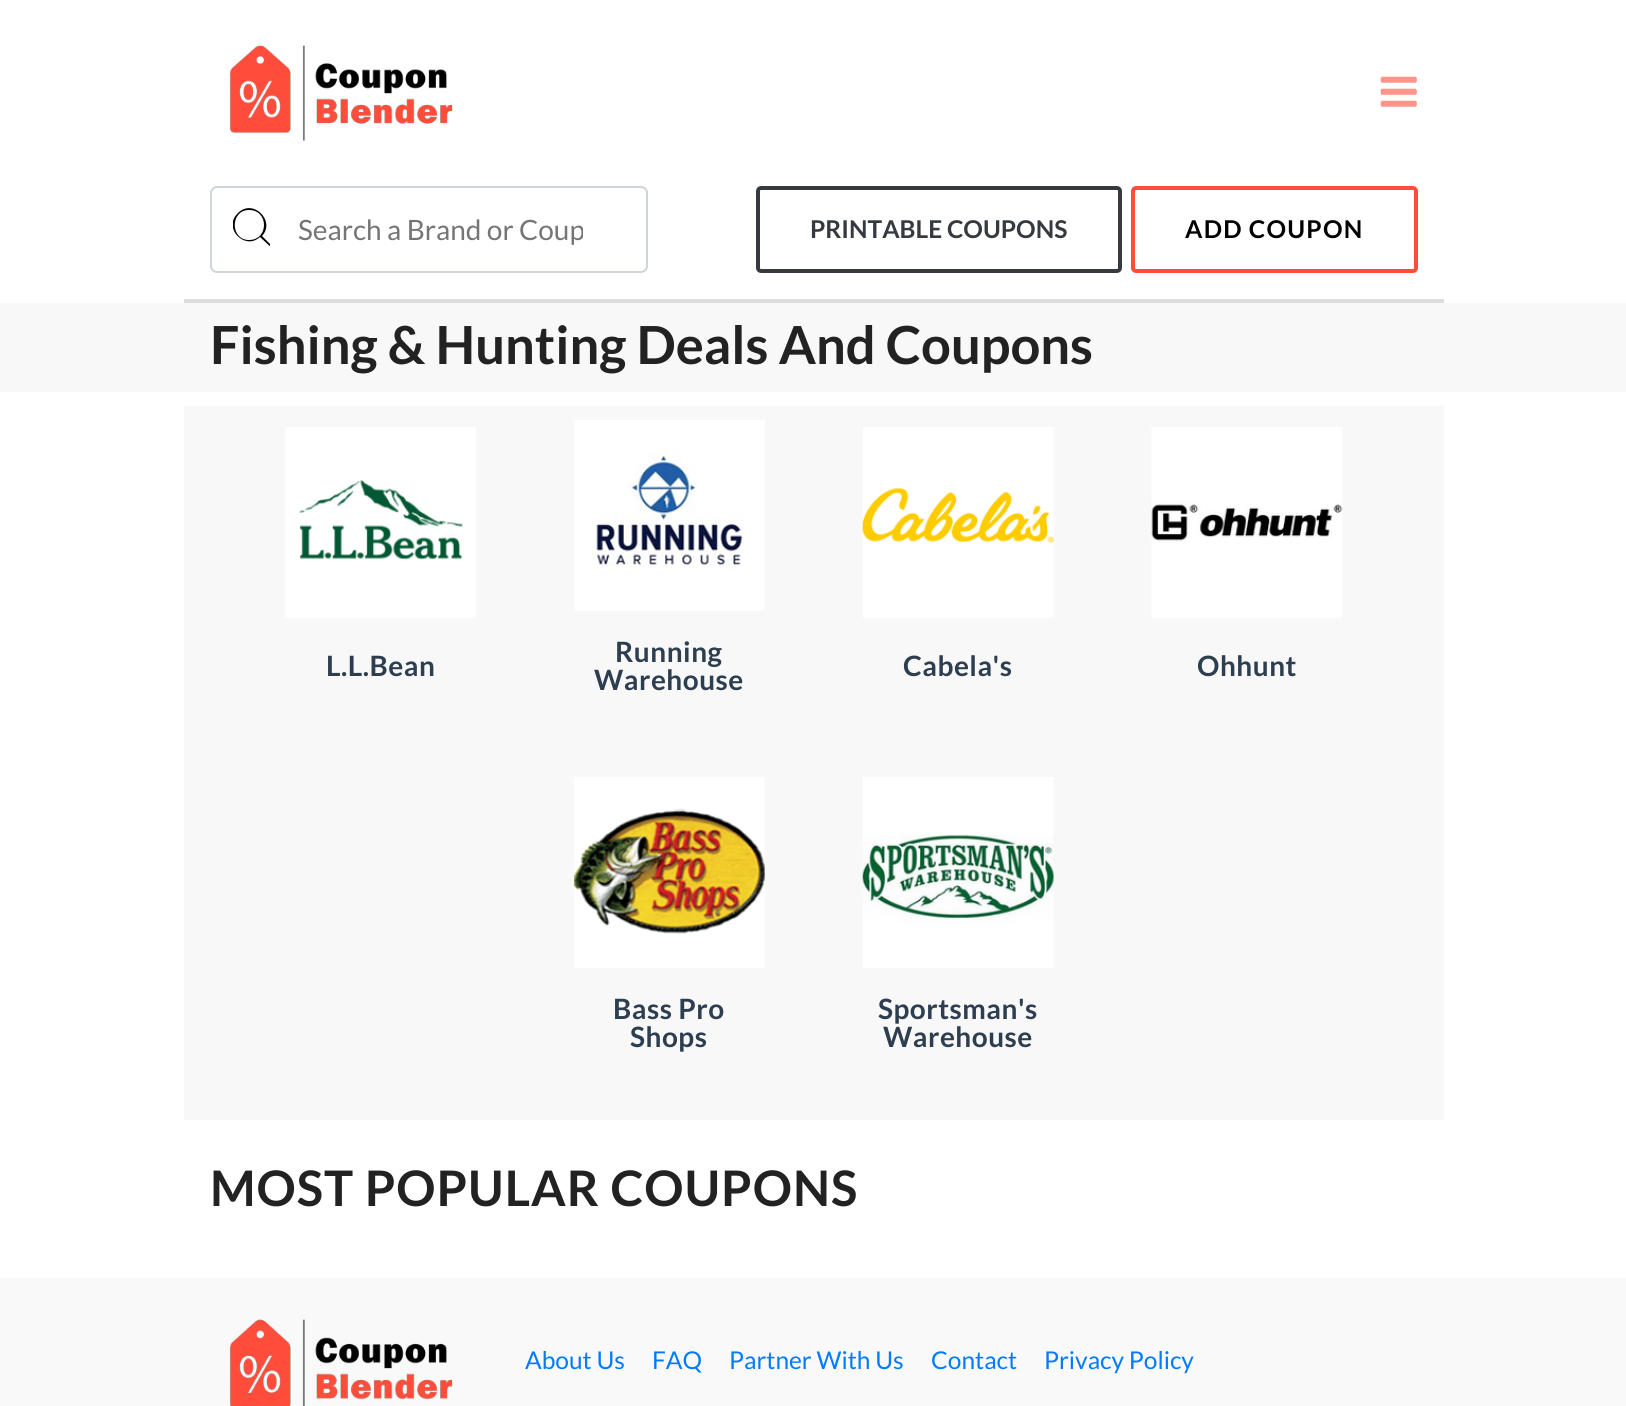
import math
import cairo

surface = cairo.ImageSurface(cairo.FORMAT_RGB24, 1626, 1406)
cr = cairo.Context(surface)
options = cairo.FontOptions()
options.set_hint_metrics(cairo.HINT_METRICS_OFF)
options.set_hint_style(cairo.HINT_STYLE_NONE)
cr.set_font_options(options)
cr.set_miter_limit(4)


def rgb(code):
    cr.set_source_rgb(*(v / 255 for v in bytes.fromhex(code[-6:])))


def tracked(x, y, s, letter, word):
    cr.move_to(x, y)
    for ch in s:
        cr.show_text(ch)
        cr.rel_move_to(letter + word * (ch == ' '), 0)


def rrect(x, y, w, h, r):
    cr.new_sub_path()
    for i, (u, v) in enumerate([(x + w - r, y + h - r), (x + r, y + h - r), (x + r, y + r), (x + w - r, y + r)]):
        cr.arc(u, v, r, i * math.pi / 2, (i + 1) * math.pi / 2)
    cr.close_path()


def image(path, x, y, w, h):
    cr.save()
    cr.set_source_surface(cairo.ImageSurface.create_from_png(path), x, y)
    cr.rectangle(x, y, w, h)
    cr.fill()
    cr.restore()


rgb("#ffffff")
cr.paint()
image("img/1.png", 229, 45, 224, 96)
image("img/2.png", 1380, 76, 37, 31)
rgb("#dddddd")
cr.rectangle(184, 299, 1260, 4)
cr.fill()
rrect(211, 187, 436, 85, 6)
rgb("#ced4da")
cr.stroke()
cr.save()
cr.rectangle(233, 208, 37, 42)
cr.clip()
rgb("#000000")
cr.set_fill_rule(cairo.FILL_RULE_EVEN_ODD)
cr.new_path()
cr.move_to(260, 237)
cr.curve_to(245, 251, 222, 228, 238, 213)
cr.curve_to(253, 198, 276, 221, 262, 236)
cr.line_to(275, 249)
cr.line_to(274, 250)
cr.close_path()
cr.move_to(249, 210)
cr.curve_to(269, 210, 269, 240, 249, 240)
cr.curve_to(230, 240, 230, 210, 249, 210)
cr.close_path()
cr.fill()
cr.restore()
rrect(758, 188, 362, 83, 3)
rgb("#343a40")
cr.set_line_width(4)
cr.stroke()
rrect(1133, 188, 283, 83, 3)
rgb("#ff4c3b")
cr.stroke()
rgb("#f8f8f8")
cr.rectangle(0, 303, 1626, 89)
cr.fill()
cr.rectangle(184, 406, 1260, 714)
cr.fill()
image("img/3.png", 285, 427, 191, 191)
image("img/4.png", 574, 420, 191, 191)
image("img/5.png", 862, 427, 192, 191)
image("img/6.png", 1151, 427, 192, 191)
image("img/7.png", 574, 777, 191, 191)
image("img/8.png", 862, 777, 192, 191)
rgb("#f9f9f9")
cr.rectangle(0, 1278, 1626, 128)
cr.fill()
image("img/9.png", 229, 1319, 224, 87)
cr.save()
cr.rectangle(298, 212, 285, 33)
cr.clip()
cr.select_font_face("Lato")
cr.set_font_size(28)
rgb("#757575")
cr.move_to(298, 240)
cr.show_text("Search a Brand or Coup")
cr.restore()
cr.select_font_face("Lato", cairo.FONT_SLANT_NORMAL, cairo.FONT_WEIGHT_BOLD)
cr.set_font_size(24.5)
rgb("#343a40")
cr.move_to(810, 238)
cr.show_text("PRINTABLE COUPONS")
rgb("#000000")
tracked(1185, 238, "ADD COUPON", 1.25, 0)
cr.set_font_size(52.5)
rgb("#222222")
cr.move_to(210, 364)
cr.show_text("Fishing & Hunting Deals And Coupons")
cr.set_font_size(28)
rgb("#2d3e50")
for x, y, s in [
    (326, 676, "L.L.Bean"),
    (615, 662, "Running"),
    (594, 690, "Warehouse"),
    (903, 676, "Cabela's"),
    (1197, 676, "Ohhunt"),
    (613, 1019, "Bass Pro"),
    (630, 1047, "Shops"),
    (878, 1019, "Sportsman's"),
    (883, 1047, "Warehouse"),
]:
    tracked(x, y, s, 0.5, 0)
cr.set_font_size(49)
rgb("#222222")
tracked(210, 1206, "MOST POPULAR COUPONS", 1, 0)
cr.select_font_face("Lato")
cr.set_font_size(24.5)
rgb("#007bff")
for x, y, s in [
    (525, 1369, "About Us"),
    (652, 1369, "FAQ"),
    (729, 1369, "Partner With Us"),
    (931, 1369, "Contact"),
    (1044, 1369, "Privacy Policy"),
]:
    cr.move_to(x, y)
    cr.show_text(s)
surface.write_to_png("page.png")
